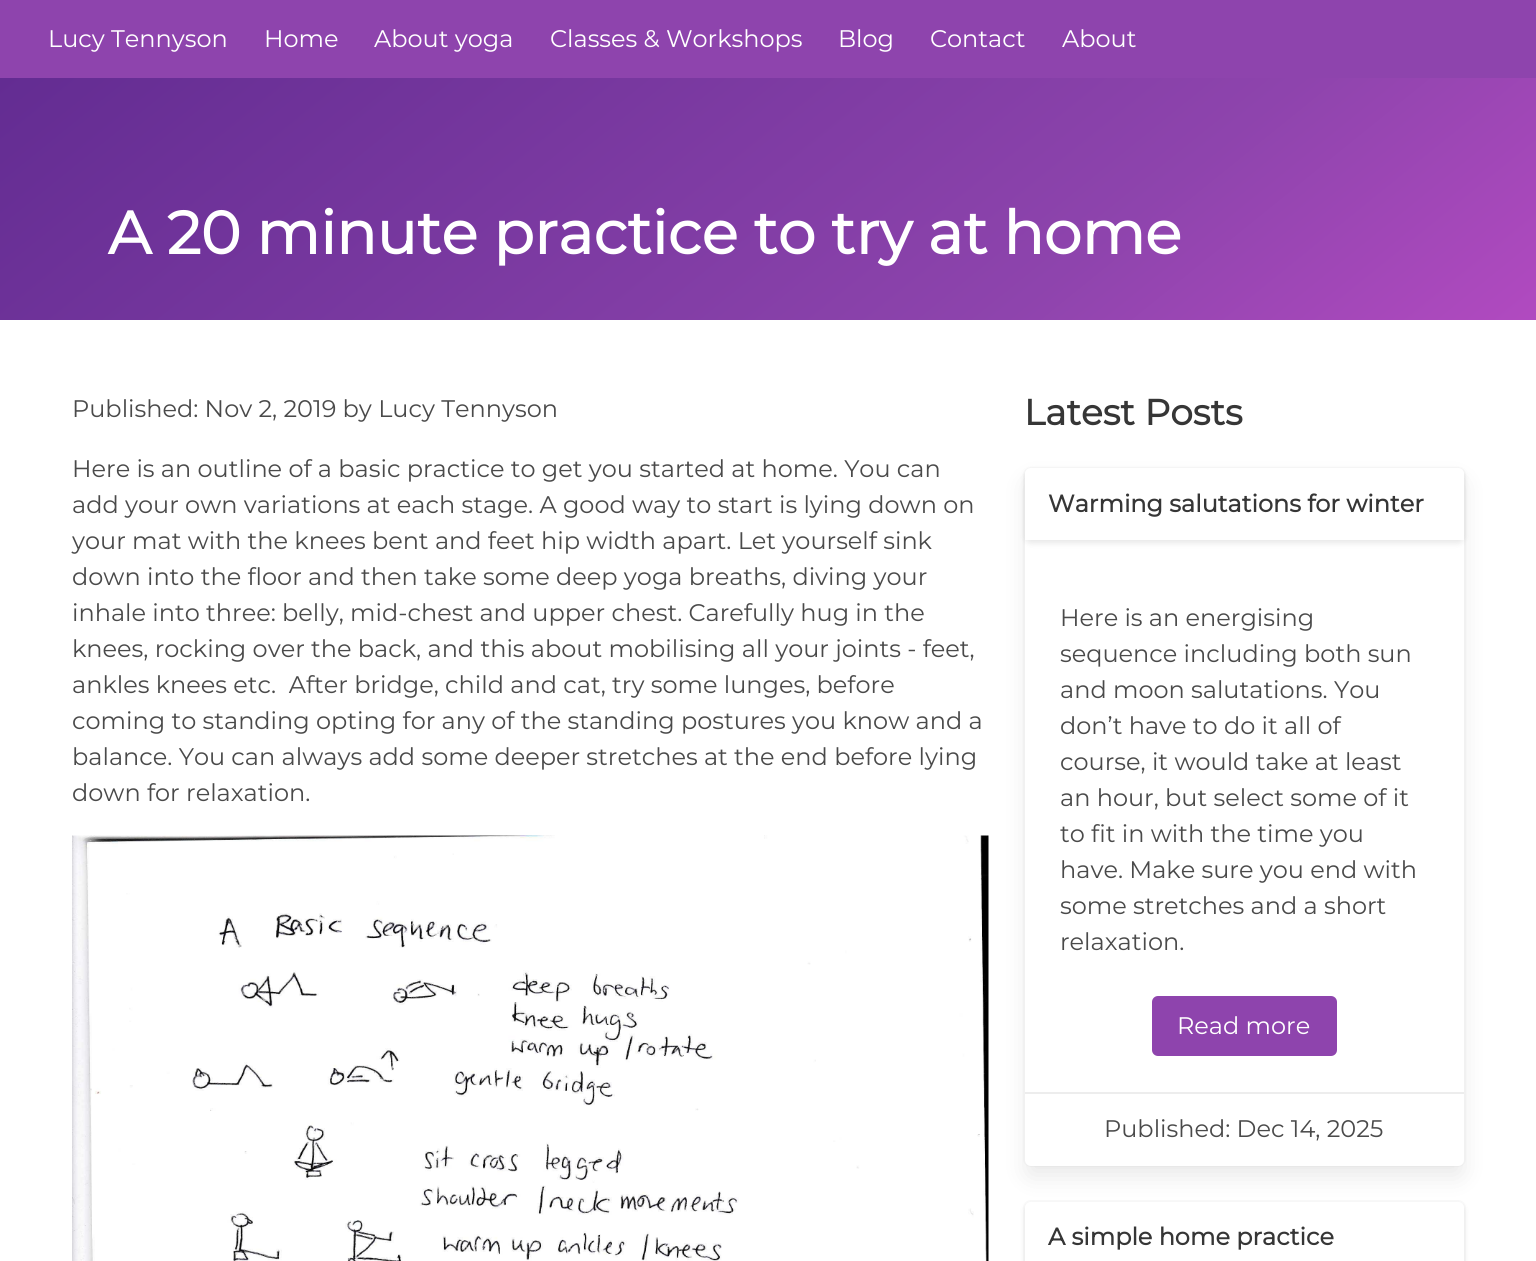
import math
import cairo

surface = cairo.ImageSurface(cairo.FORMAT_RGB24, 1536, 1261)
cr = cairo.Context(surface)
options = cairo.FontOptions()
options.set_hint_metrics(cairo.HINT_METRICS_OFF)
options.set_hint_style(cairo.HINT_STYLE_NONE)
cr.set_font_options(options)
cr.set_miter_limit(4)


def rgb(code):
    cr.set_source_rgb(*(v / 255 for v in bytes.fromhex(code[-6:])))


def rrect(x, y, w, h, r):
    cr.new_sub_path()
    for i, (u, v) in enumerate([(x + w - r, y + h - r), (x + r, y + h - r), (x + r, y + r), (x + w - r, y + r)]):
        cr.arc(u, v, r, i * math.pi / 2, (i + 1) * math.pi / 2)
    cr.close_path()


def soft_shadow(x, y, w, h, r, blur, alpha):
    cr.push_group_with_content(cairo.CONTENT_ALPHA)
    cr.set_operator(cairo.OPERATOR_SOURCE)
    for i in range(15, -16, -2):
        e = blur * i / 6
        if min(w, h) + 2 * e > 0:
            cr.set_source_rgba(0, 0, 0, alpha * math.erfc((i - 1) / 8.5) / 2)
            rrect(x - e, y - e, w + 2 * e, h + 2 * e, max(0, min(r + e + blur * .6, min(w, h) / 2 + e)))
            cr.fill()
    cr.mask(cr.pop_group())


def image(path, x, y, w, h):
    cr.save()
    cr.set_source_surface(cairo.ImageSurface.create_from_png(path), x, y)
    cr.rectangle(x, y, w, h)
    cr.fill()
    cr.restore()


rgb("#ffffff")
cr.paint()
rgb("#8e44ad")
cr.rectangle(0, 0, 1536, 78)
cr.fill()
gradient = cairo.LinearGradient(405, -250, 1131, 647)
gradient.add_color_stop_rgba(0, 0.388, 0.173, 0.573, 1)
gradient.add_color_stop_rgba(0.71, 0.557, 0.267, 0.678, 1)
gradient.add_color_stop_rgba(1, 0.694, 0.29, 0.753, 1)
cr.set_source(gradient)
cr.rectangle(0, 78, 1536, 242)
cr.fill()
image("img/1.png", 72, 835, 917, 426)
rrect(1024, 468, 441, 698, 7)
rgb("#fafafa")
cr.stroke()
rgb("#0a0a0a")
soft_shadow(1028, 483, 433, 692, 3, 12, 0.1)
rgb("#ffffff")
rrect(1025, 468, 439, 698, 6)
cr.fill()
cr.save()
cr.set_fill_rule(cairo.FILL_RULE_EVEN_ODD)
cr.new_path()
cr.move_to(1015, 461)
cr.line_to(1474, 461)
cr.line_to(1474, 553)
cr.line_to(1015, 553)
cr.close_path()
cr.move_to(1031, 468)
cr.line_to(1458, 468)
cr.curve_to(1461.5, 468, 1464, 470.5, 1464, 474)
cr.line_to(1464, 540)
cr.line_to(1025, 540)
cr.line_to(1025, 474)
cr.curve_to(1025, 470.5, 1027.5, 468, 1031, 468)
cr.close_path()
cr.clip()
rgb("#0a0a0a")
soft_shadow(1025, 471, 439, 72, 6, 3, 0.1)
cr.restore()
rgb("#8e44ad")
rrect(1152, 996, 185, 60, 6)
cr.fill()
rgb("#ededed")
cr.rectangle(1025, 1092, 439, 2)
cr.fill()
rrect(1024, 1201, 441, 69, 7)
rgb("#fafafa")
cr.stroke()
cr.save()
cr.set_fill_rule(cairo.FILL_RULE_EVEN_ODD)
cr.new_path()
cr.move_to(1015, 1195)
cr.line_to(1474, 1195)
cr.line_to(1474, 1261)
cr.line_to(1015, 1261)
cr.close_path()
cr.move_to(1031, 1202)
cr.line_to(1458, 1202)
cr.curve_to(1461.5, 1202, 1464, 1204.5, 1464, 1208)
cr.line_to(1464, 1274)
cr.line_to(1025, 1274)
cr.line_to(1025, 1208)
cr.curve_to(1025, 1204.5, 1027.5, 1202, 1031, 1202)
cr.close_path()
cr.clip()
rgb("#0a0a0a")
soft_shadow(1025, 1205, 439, 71, 6, 3, 0.1)
cr.restore()
cr.select_font_face("Montserrat Thin")
cr.set_font_size(24)
rgb("#ffffff")
for x, y, s in [
    (48, 47, "Lucy Tennyson"),
    (264, 47, "Home"),
    (374, 47, "About yoga"),
    (550, 47, "Classes & Workshops"),
    (838, 47, "Blog"),
    (930, 47, "Contact"),
    (1062, 47, "About"),
]:
    cr.move_to(x, y)
    cr.show_text(s)
cr.select_font_face("Montserrat", cairo.FONT_SLANT_NORMAL, cairo.FONT_WEIGHT_BOLD)
cr.set_font_size(60)
cr.move_to(108, 254)
cr.show_text("A 20 minute practice to try at home")
cr.select_font_face("Montserrat Thin")
cr.set_font_size(24)
rgb("#4a4a4a")
for x, y, s in [
    (72, 417, "Published: Nov 2, 2019 by Lucy Tennyson"),
    (72, 477, "Here is an outline of a basic practice to get you started at home. You can"),
    (72, 513, "add your own variations at each stage. A good way to start is lying down on"),
    (72, 549, "your mat with the knees bent and feet hip width apart. Let yourself sink"),
    (72, 585, "down into the floor and then take some deep yoga breaths, diving your"),
    (72, 621, "inhale into three: belly, mid-chest and upper chest. Carefully hug in the"),
    (72, 657, "knees, rocking over the back, and this about mobilising all your joints - feet,"),
    (72, 693, "ankles knees etc.  After bridge, child and cat, try some lunges, before"),
    (72, 729, "coming to standing opting for any of the standing postures you know and a"),
    (72, 765, "balance. You can always add some deeper stretches at the end before lying"),
    (72, 801, "down for relaxation."),
]:
    cr.move_to(x, y)
    cr.show_text(s)
cr.select_font_face("Montserrat", cairo.FONT_SLANT_NORMAL, cairo.FONT_WEIGHT_BOLD)
cr.set_font_size(36)
rgb("#363636")
cr.move_to(1024, 425)
cr.show_text("Latest Posts")
cr.set_font_size(24)
cr.move_to(1048, 512)
cr.show_text("Warming salutations for winter")
cr.select_font_face("Montserrat Thin")
rgb("#4a4a4a")
for x, y, s in [
    (1060, 626, "Here is an energising"),
    (1060, 662, "sequence including both sun"),
    (1060, 698, "and moon salutations. You"),
    (1060, 734, "don’t have to do it all of"),
    (1060, 770, "course, it would take at least"),
    (1060, 806, "an hour, but select some of it"),
    (1060, 842, "to fit in with the time you"),
    (1060, 878, "have. Make sure you end with"),
    (1060, 914, "some stretches and a short"),
    (1060, 950, "relaxation."),
]:
    cr.move_to(x, y)
    cr.show_text(s)
rgb("#ffffff")
cr.move_to(1177, 1034)
cr.show_text("Read more")
rgb("#4a4a4a")
cr.move_to(1104, 1137)
cr.show_text("Published: Dec 14, 2025")
cr.select_font_face("Montserrat", cairo.FONT_SLANT_NORMAL, cairo.FONT_WEIGHT_BOLD)
rgb("#363636")
cr.move_to(1048, 1245)
cr.show_text("A simple home practice")
surface.write_to_png("page.png")
